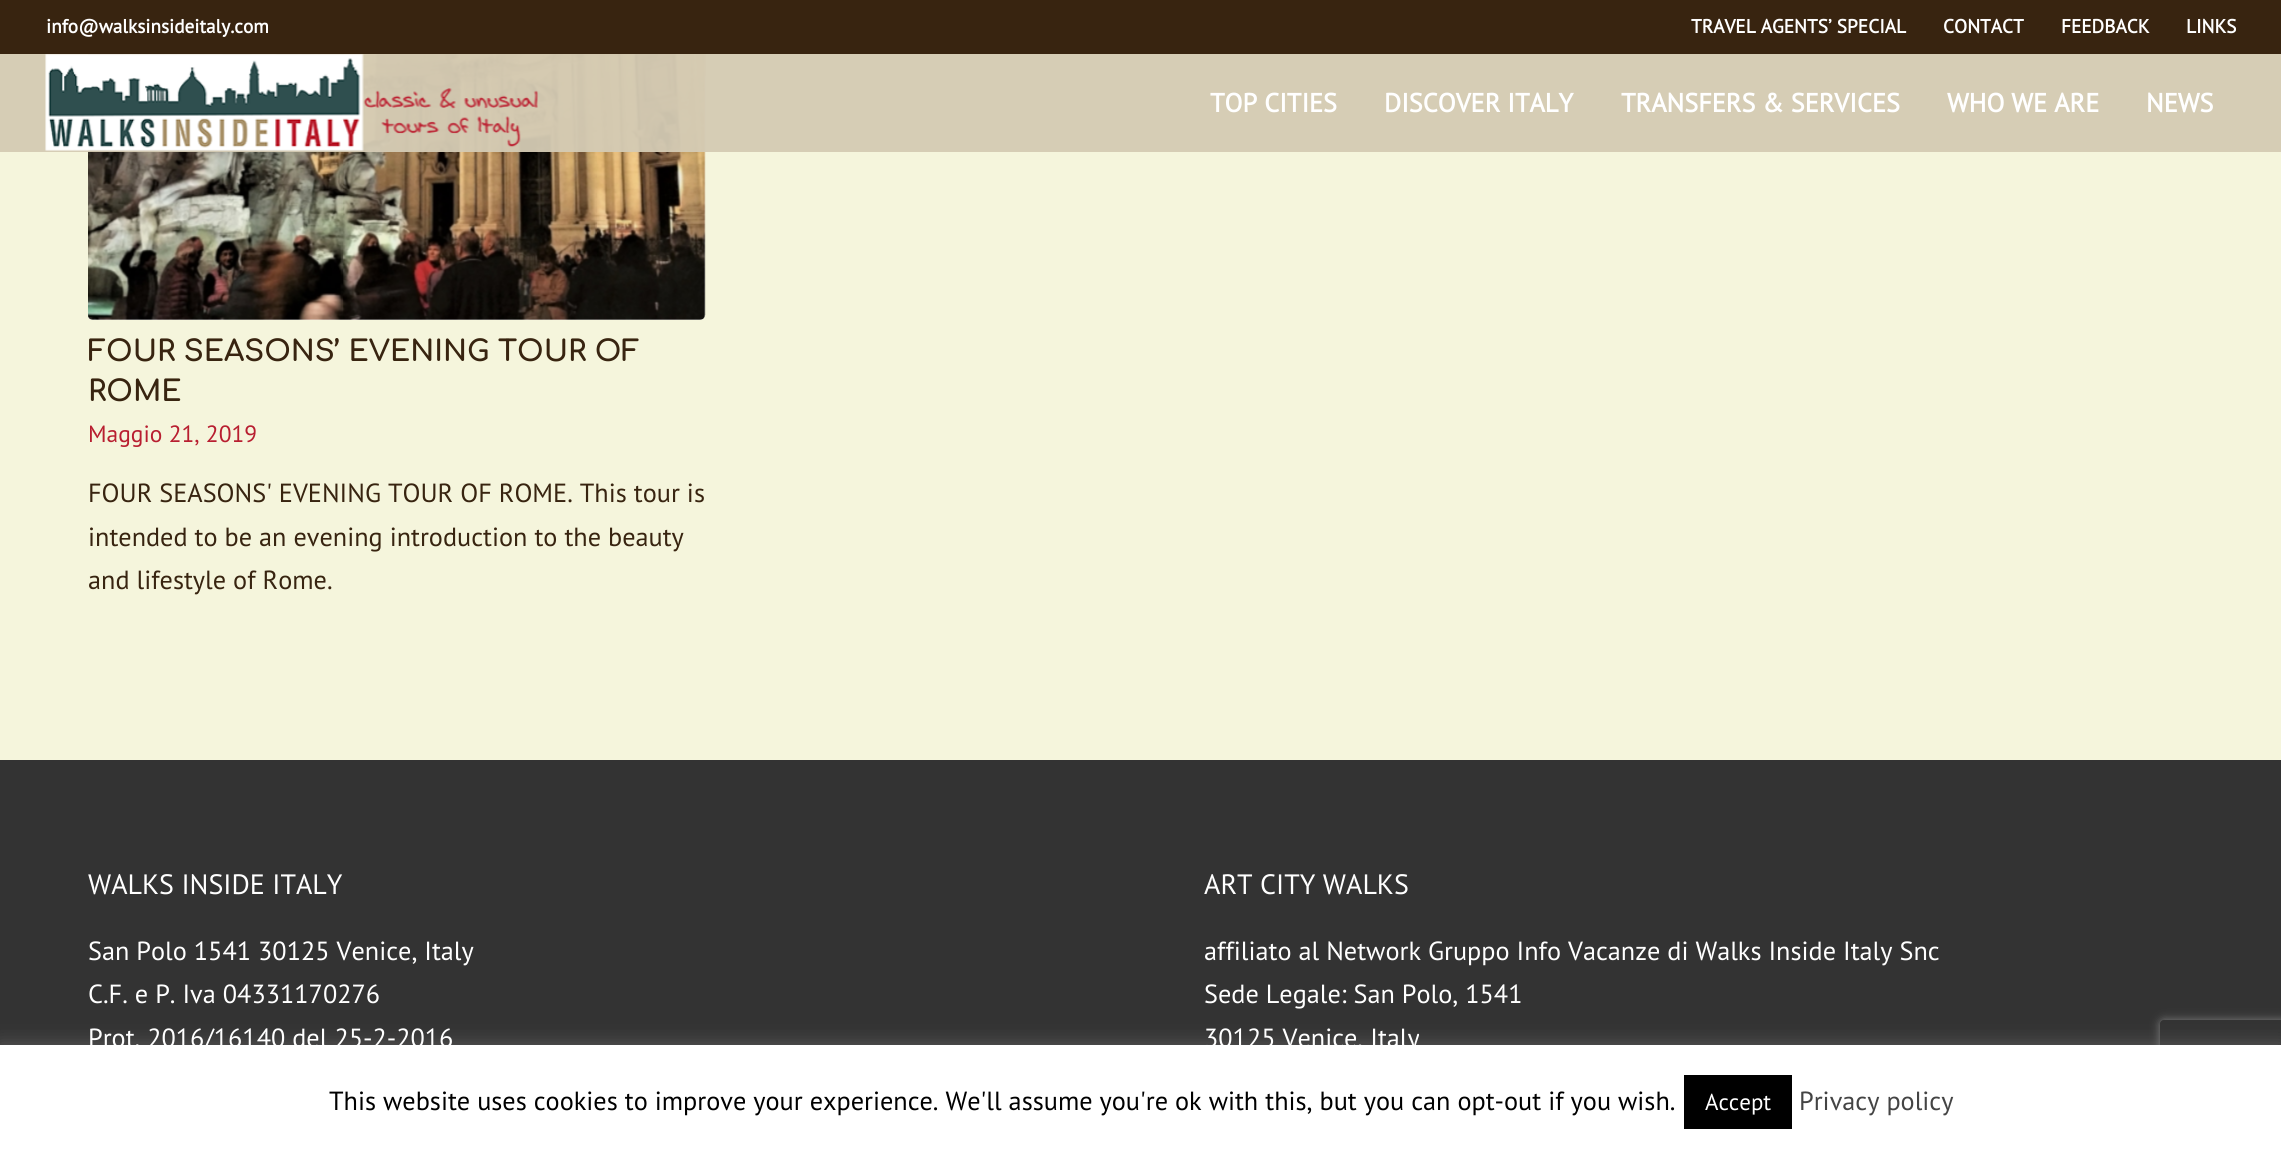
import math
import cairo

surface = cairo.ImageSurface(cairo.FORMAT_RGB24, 2281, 1149)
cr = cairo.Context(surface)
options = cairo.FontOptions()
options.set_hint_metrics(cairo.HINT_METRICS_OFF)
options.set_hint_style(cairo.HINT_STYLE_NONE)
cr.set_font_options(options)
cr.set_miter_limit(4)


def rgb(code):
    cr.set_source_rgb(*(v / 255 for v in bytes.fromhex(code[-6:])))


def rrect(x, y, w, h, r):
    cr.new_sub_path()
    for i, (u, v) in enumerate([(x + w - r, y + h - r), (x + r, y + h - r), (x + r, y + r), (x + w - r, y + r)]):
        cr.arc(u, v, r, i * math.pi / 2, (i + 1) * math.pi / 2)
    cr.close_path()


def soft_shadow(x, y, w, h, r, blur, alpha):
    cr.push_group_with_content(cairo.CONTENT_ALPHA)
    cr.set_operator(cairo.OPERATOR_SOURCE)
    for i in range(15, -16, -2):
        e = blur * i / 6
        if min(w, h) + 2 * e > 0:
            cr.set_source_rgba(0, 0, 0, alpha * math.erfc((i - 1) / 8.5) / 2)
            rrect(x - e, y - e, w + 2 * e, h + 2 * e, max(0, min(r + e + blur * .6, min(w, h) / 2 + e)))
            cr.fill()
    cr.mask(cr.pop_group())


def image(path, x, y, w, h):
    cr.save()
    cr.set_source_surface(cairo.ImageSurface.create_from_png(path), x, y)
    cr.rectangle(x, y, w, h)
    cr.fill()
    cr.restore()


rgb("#f5f5dc")
cr.paint()
rgb("#ffffff")
rrect(88, -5, 617, 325, 5)
cr.fill()
rgb("#382410")
cr.rectangle(0, 0, 2281, 54)
cr.fill()
image("img/2.png", 88, 54, 618, 266)
cr.set_source_rgba(0.831, 0.796, 0.706, 0.95)
cr.rectangle(0, 54, 2281, 98)
cr.fill()
image("img/1.png", 45, 54, 493, 97)
rgb("#333333")
cr.rectangle(0, 760, 2281, 285)
cr.fill()
rgb("#acabab")
soft_shadow(0, 1043, 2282, 105, 0, 9, 0.3)
cr.save()
cr.set_fill_rule(cairo.FILL_RULE_EVEN_ODD)
cr.new_path()
cr.move_to(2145, 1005)
cr.line_to(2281, 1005)
cr.line_to(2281, 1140)
cr.line_to(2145, 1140)
cr.close_path()
cr.move_to(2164, 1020)
cr.line_to(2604, 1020)
cr.curve_to(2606, 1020, 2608, 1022, 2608, 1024)
cr.line_to(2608, 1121)
cr.curve_to(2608, 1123, 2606, 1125, 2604, 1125)
cr.line_to(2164, 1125)
cr.curve_to(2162, 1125, 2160, 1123, 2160, 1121)
cr.line_to(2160, 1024)
cr.curve_to(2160, 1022, 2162, 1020, 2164, 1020)
cr.close_path()
cr.clip()
rgb("#808080")
soft_shadow(2160, 1020, 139, 105, 4, 4.5, 1)
cr.restore()
rgb("#ffffff")
cr.rectangle(0, 1045, 2281, 104)
cr.fill()
rgb("#000000")
cr.rectangle(1684, 1075, 108, 54)
cr.fill()
cr.select_font_face("PT Sans", cairo.FONT_SLANT_NORMAL, cairo.FONT_WEIGHT_BOLD)
cr.set_font_size(19.25)
rgb("#ffffff")
for x, y, s in [
    (46, 33, "info@walksinsideitaly.com"),
    (1691, 33, "TRAVEL AGENTS’ SPECIAL"),
    (1943, 33, "CONTACT"),
    (2061, 33, "FEEDBACK"),
    (2186, 33, "LINKS"),
]:
    cr.move_to(x, y)
    cr.show_text(s)
cr.set_font_size(26.25)
for x, y, s in [
    (1210, 112, "TOP CITIES"),
    (1384, 112, "DISCOVER ITALY"),
    (1621, 112, "TRANSFERS & SERVICES"),
    (1947, 112, "WHO WE ARE"),
    (2146, 112, "NEWS"),
]:
    cr.move_to(x, y)
    cr.show_text(s)
cr.select_font_face("Comfortaa", cairo.FONT_SLANT_NORMAL, cairo.FONT_WEIGHT_BOLD)
cr.set_font_size(28.9)
rgb("#382410")
cr.move_to(88, 361)
cr.show_text("FOUR SEASONS’ EVENING TOUR OF")
cr.move_to(88, 401)
cr.show_text("ROME")
cr.select_font_face("PT Sans")
cr.set_font_size(23.5)
rgb("#b81e30")
cr.move_to(88, 442)
cr.show_text("Maggio 21, 2019")
cr.set_font_size(26.25)
rgb("#382410")
for x, y, s in [
    (88, 502, "FOUR SEASONS' EVENING TOUR OF ROME. This tour is"),
    (88, 546, "intended to be an evening introduction to the beauty"),
    (88, 589, "and lifestyle of Rome."),
]:
    cr.move_to(x, y)
    cr.show_text(s)
cr.set_font_size(28)
rgb("#ffffff")
cr.move_to(88, 894)
cr.show_text("WALKS INSIDE ITALY")
cr.set_font_size(26.25)
for x, y, s in [
    (88, 960, "San Polo 1541 30125 Venice, Italy"),
    (88, 1003, "C.F. e P. Iva 04331170276"),
    (88, 1047, "Prot. 2016/16140 del 25-2-2016"),
]:
    cr.move_to(x, y)
    cr.show_text(s)
cr.set_font_size(28)
cr.move_to(1204, 894)
cr.show_text("ART CITY WALKS")
cr.set_font_size(26.25)
for x, y, s in [
    (1204, 960, "affiliato al Network Gruppo Info Vacanze di Walks Inside Italy Snc"),
    (1204, 1003, "Sede Legale: San Polo, 1541"),
    (1204, 1047, "30125 Venice, Italy"),
]:
    cr.move_to(x, y)
    cr.show_text(s)
rgb("#000000")
cr.move_to(329, 1110)
cr.show_text("This website uses cookies to improve your experience. We'll assume you're ok with this, but you can opt-out if you wish.")
cr.set_font_size(23)
rgb("#ffffff")
cr.move_to(1705, 1110)
cr.show_text("Accept")
cr.set_font_size(26.25)
rgb("#444444")
cr.move_to(1799, 1110)
cr.show_text("Privacy policy")
surface.write_to_png("page.png")
